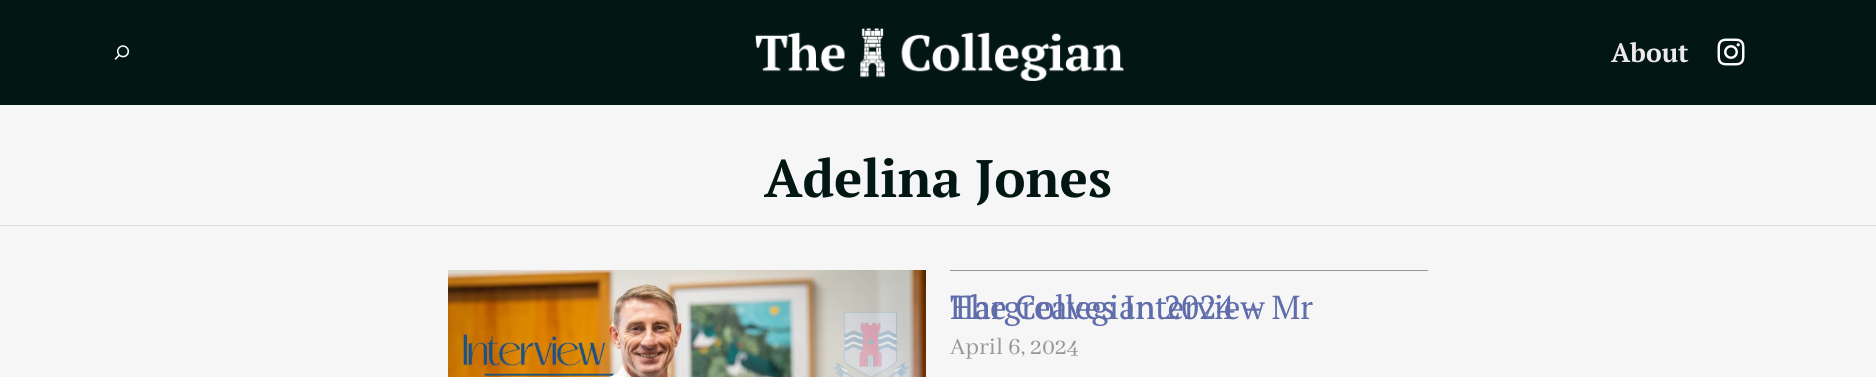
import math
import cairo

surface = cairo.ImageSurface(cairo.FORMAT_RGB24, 1876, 377)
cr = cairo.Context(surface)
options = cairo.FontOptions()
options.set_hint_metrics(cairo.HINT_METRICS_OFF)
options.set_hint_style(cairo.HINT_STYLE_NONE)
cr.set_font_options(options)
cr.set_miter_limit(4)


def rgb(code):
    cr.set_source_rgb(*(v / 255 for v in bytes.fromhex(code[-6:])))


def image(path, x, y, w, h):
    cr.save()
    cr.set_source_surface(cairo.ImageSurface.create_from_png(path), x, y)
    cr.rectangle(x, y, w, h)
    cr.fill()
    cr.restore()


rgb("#f6f6f6")
cr.paint()
rgb("#021614")
cr.rectangle(0, 0, 1876, 105)
cr.fill()
image("img/1.png", 114, 45, 16, 15)
image("img/2.png", 755, 28, 369, 53)
image("img/3.png", 1717, 38, 28, 28)
rgb("#dedede")
cr.rectangle(0, 225, 1876, 1)
cr.fill()
image("img/4.png", 448, 270, 478, 107)
rgb("#999696")
cr.rectangle(950, 270, 478, 1)
cr.fill()
cr.select_font_face("PT Serif", cairo.FONT_SLANT_NORMAL, cairo.FONT_WEIGHT_BOLD)
cr.set_font_size(26.5)
rgb("#ece9ea")
cr.move_to(1611, 62)
cr.show_text("About")
cr.set_font_size(52.75)
rgb("#021614")
cr.move_to(764, 197)
cr.show_text("Adelina Jones")
cr.select_font_face("PT Serif")
cr.set_font_size(33.25)
rgb("#606dab")
cr.move_to(950, 319)
cr.show_text("The Collegian 2024 – Mr")
cr.move_to(950, 319)
cr.show_text("Hargreaves Interview")
cr.select_font_face("Abhaya Libre")
cr.set_font_size(25.5)
rgb("#999696")
cr.move_to(950, 354)
cr.show_text("April 6, 2024")
surface.write_to_png("page.png")
